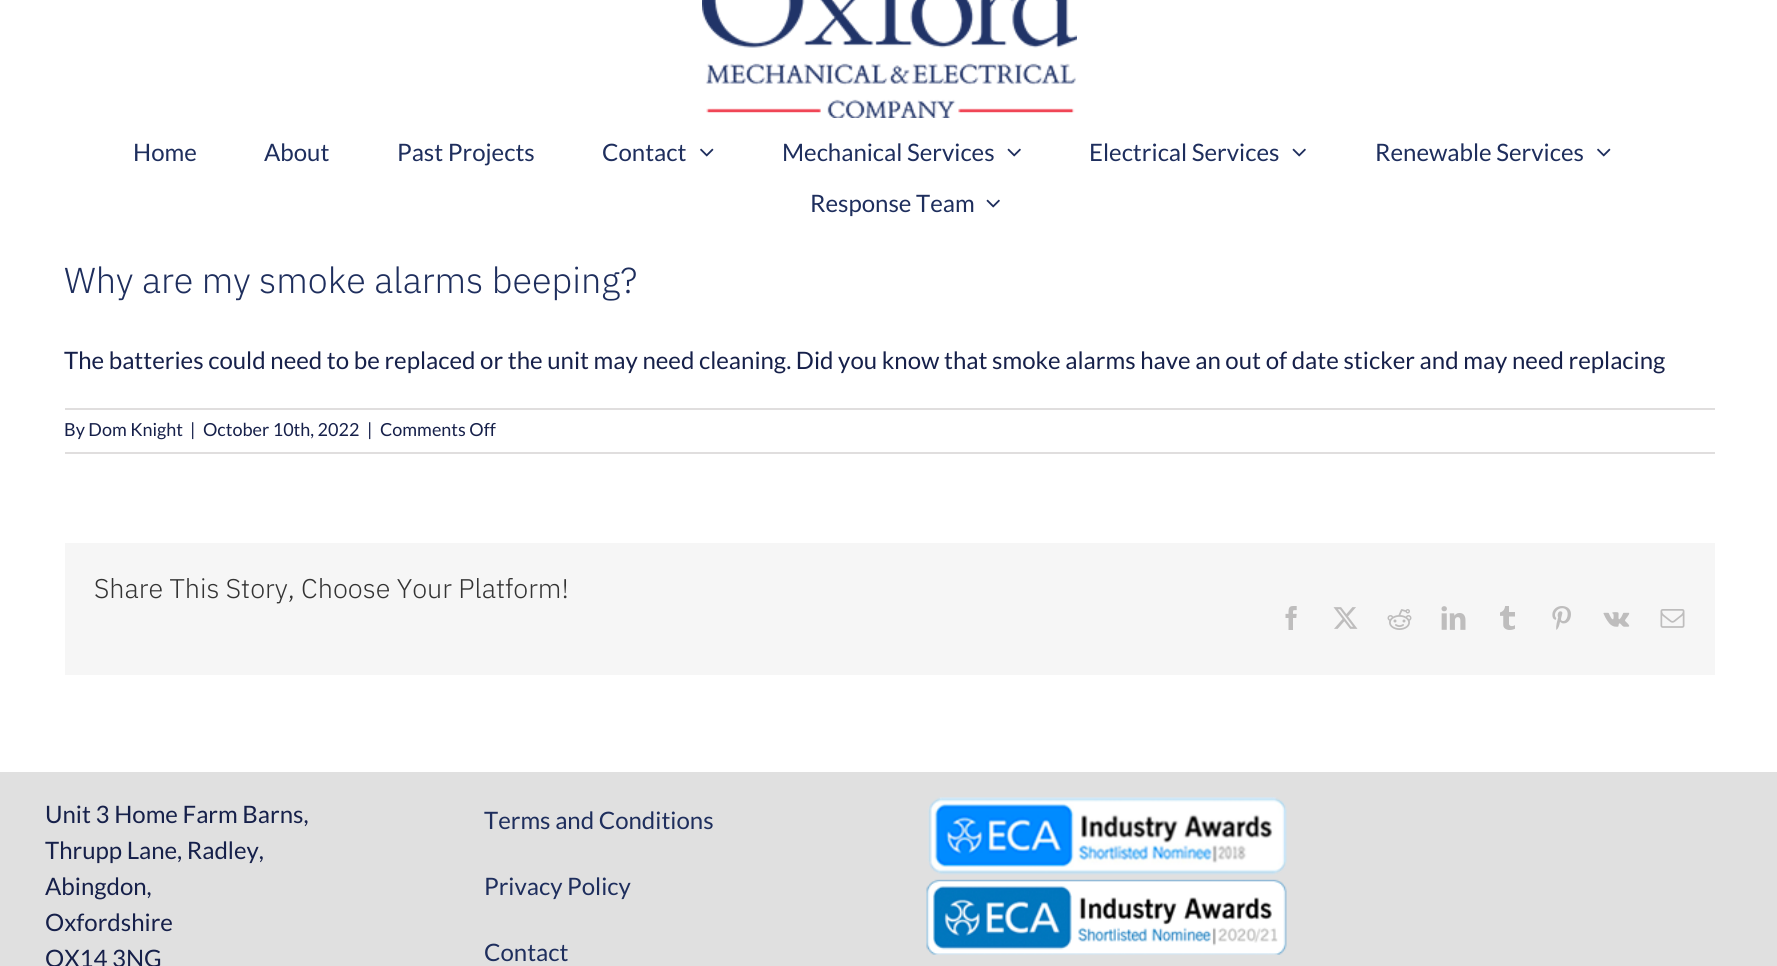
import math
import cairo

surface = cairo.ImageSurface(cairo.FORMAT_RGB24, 1777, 966)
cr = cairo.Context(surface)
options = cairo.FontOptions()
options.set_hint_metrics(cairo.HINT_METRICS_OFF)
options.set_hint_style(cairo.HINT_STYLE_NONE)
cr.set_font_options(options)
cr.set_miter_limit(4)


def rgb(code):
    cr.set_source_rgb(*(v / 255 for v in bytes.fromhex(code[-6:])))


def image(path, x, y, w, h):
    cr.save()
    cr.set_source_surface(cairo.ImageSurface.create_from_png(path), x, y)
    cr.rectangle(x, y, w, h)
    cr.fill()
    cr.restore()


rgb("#ffffff")
cr.paint()
image("img/1.png", 702, 0, 375, 118)
image("img/2.png", 700, 148, 14, 9)
image("img/3.png", 1007, 148, 14, 9)
image("img/3.png", 1292, 148, 14, 9)
image("img/2.png", 1597, 148, 14, 9)
image("img/3.png", 986, 199, 14, 9)
for x, y, w, h, color in [
    (65, 408, 1650, 2, "#e0dede"),
    (65, 452, 1650, 2, "#e0dede"),
    (65, 543, 1650, 132, "#f6f6f6"),
]:
    rgb(color)
    cr.rectangle(x, y, w, h)
    cr.fill()
image("img/4.png", 1285, 606, 12, 24)
image("img/5.png", 1333, 607, 25, 22)
image("img/6.png", 1387, 609, 25, 21)
image("img/7.png", 1441, 606, 25, 24)
image("img/8.png", 1500, 606, 15, 24)
image("img/9.png", 1552, 606, 19, 24)
image("img/10.png", 1603, 612, 27, 15)
image("img/11.png", 1660, 609, 25, 19)
rgb("#e0e0e0")
cr.rectangle(0, 772, 1777, 194)
cr.fill()
image("img/12.png", 926, 797, 361, 158)
cr.select_font_face("Lato")
cr.set_font_size(24)
rgb("#1e2e5d")
for x, y, s in [
    (133, 161, "Home"),
    (264, 161, "About"),
    (397, 161, "Past Projects"),
    (602, 161, "Contact"),
    (782, 161, "Mechanical Services"),
    (1089, 161, "Electrical Services"),
    (1375, 161, "Renewable Services"),
    (810, 212, "Response Team"),
]:
    cr.move_to(x, y)
    cr.show_text(s)
cr.select_font_face("IBM Plex Sans Light")
cr.set_font_size(36)
cr.move_to(64, 293)
cr.show_text("Why are my smoke alarms beeping?")
cr.select_font_face("Lato")
cr.set_font_size(24)
rgb("#16204a")
cr.move_to(64, 369)
cr.show_text("The batteries could need to be replaced or the unit may need cleaning. Did you know that smoke alarms have an out of date sticker and may need replacing")
cr.set_font_size(18)
for x, y, s in [
    (64, 436, "By Dom Knight"),
    (190, 436, "|"),
    (203, 436, "October 10th, 2022"),
    (367, 436, "|"),
    (380, 436, "Comments Off"),
]:
    cr.move_to(x, y)
    cr.show_text(s)
cr.select_font_face("IBM Plex Sans Light")
cr.set_font_size(27)
rgb("#333333")
cr.move_to(94, 598)
cr.show_text("Share This Story, Choose Your Platform!")
cr.select_font_face("Lato")
cr.set_font_size(24)
rgb("#16204a")
for x, y, s in [
    (45, 823, "Unit 3 Home Farm Barns,"),
    (45, 859, "Thrupp Lane, Radley,"),
    (45, 895, "Abingdon,"),
    (45, 931, "Oxfordshire"),
    (45, 967, "OX14 3NG"),
]:
    cr.move_to(x, y)
    cr.show_text(s)
rgb("#1e2e5d")
for x, y, s in [
    (484, 829, "Terms and Conditions"),
    (484, 895, "Privacy Policy"),
    (484, 961, "Contact"),
]:
    cr.move_to(x, y)
    cr.show_text(s)
surface.write_to_png("page.png")
